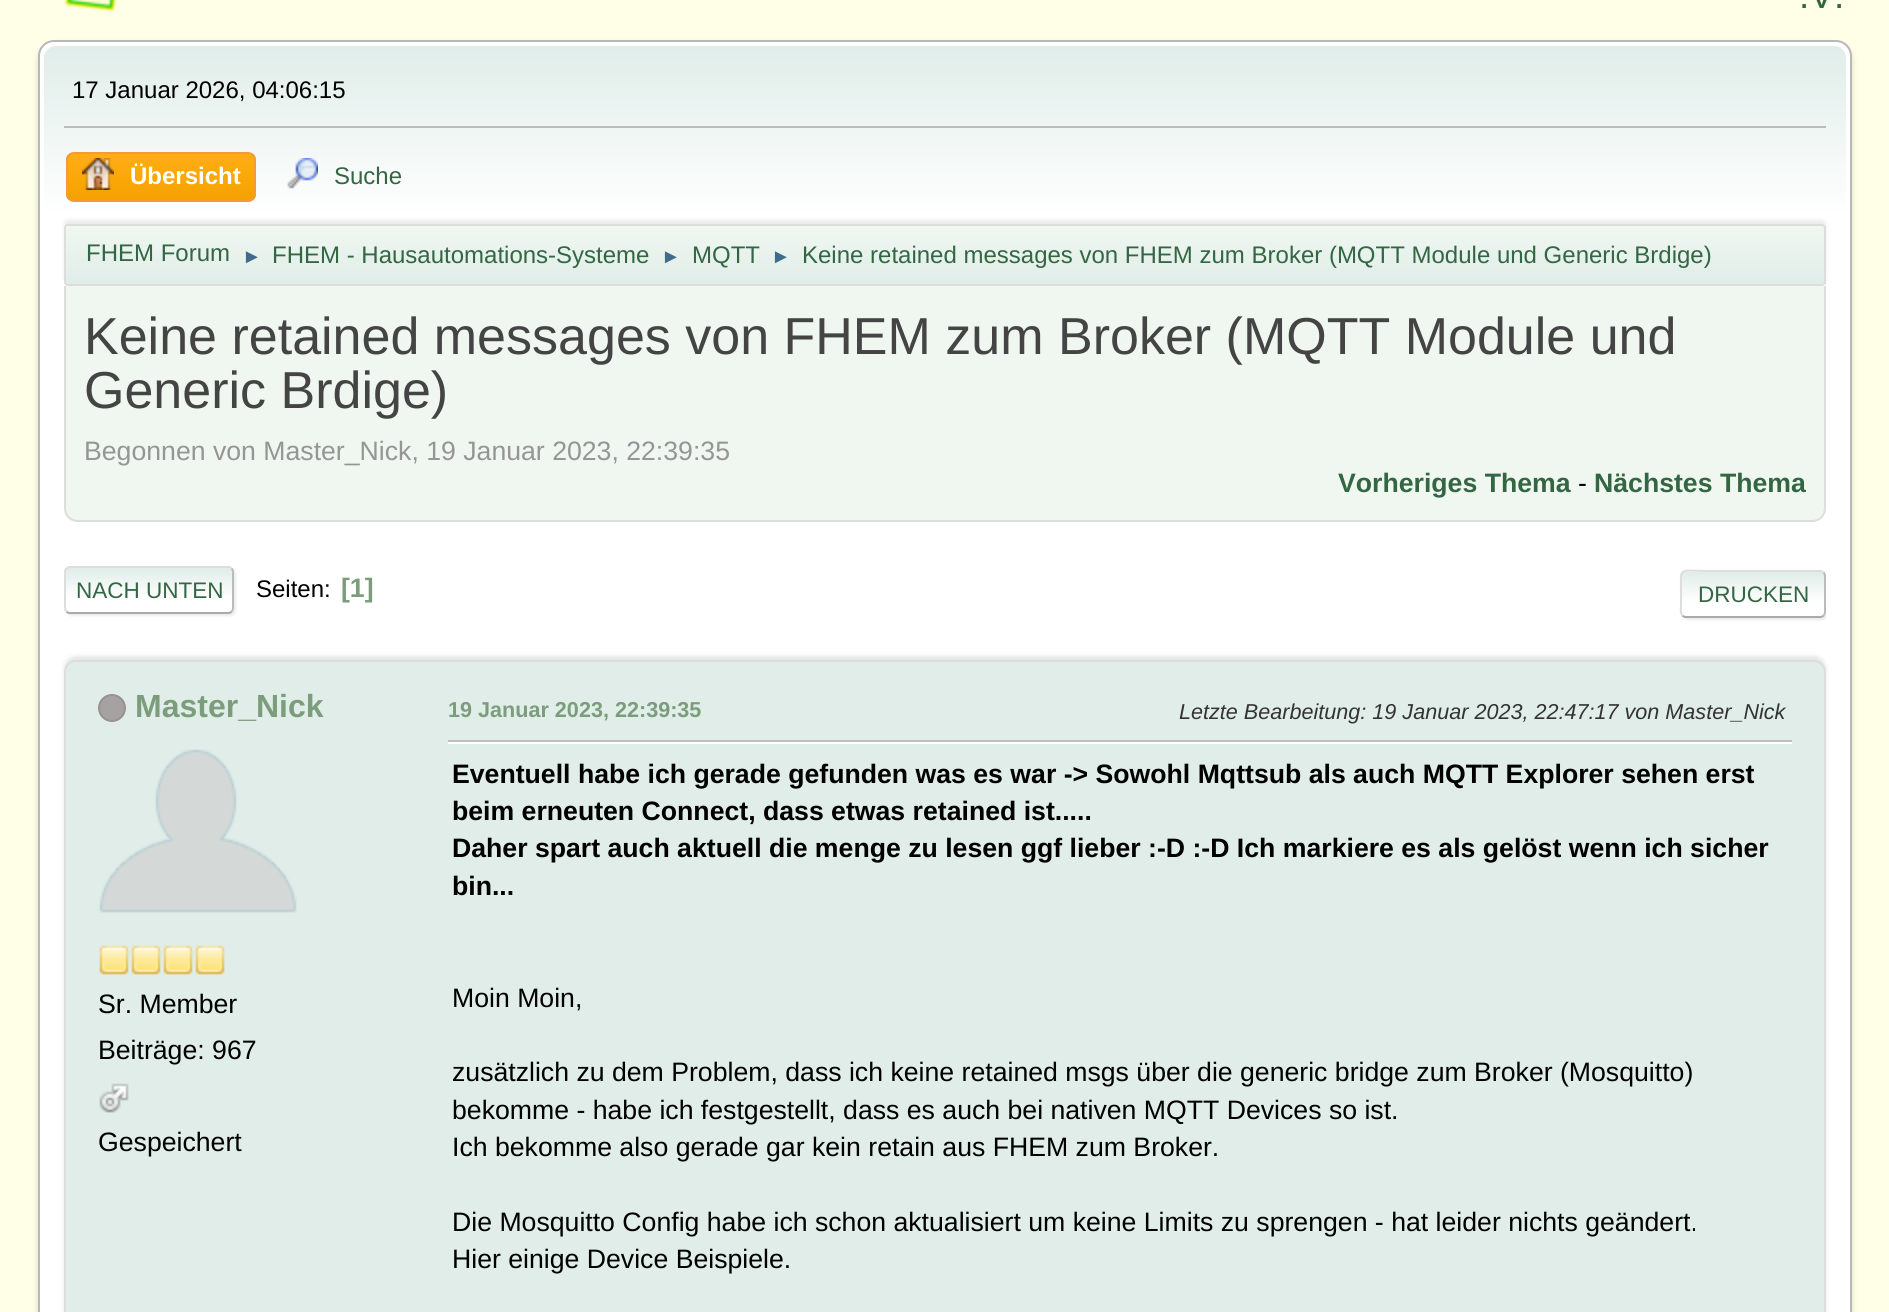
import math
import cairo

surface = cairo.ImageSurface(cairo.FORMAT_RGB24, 1889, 1312)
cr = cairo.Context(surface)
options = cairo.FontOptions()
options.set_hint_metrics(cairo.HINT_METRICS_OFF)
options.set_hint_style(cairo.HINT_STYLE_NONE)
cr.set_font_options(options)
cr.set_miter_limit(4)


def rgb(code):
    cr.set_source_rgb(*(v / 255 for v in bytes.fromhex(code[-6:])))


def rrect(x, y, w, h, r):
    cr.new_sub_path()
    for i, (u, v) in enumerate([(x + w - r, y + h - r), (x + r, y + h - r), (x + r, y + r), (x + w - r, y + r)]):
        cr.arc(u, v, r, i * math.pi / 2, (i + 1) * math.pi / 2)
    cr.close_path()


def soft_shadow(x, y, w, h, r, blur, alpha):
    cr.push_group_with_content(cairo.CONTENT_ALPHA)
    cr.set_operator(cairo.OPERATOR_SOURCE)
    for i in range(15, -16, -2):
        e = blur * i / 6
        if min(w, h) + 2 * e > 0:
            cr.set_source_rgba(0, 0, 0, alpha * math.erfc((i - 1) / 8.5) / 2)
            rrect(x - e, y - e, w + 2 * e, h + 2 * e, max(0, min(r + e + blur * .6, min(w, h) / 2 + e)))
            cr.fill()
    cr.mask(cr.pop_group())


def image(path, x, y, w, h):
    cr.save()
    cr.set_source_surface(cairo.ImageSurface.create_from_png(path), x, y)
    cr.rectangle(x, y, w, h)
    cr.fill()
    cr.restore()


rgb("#ffffe7")
cr.paint()
image("img/1.png", 63, 0, 54, 12)
rgb("#000000")
soft_shadow(38, 44, 1814, 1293, 16, 3, 0.14)
rgb("#ffffff")
rrect(39, 41, 1812, 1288, 15)
cr.fill_preserve()
rgb("#b8b8b8")
cr.stroke()
gradient = cairo.LinearGradient(945, 46, 945, 290)
gradient.add_color_stop_rgba(0, 0.878, 0.929, 0.914, 1)
gradient.add_color_stop_rgba(0.7, 1, 1, 1, 1)
cr.set_source(gradient)
cr.new_path()
cr.move_to(56, 46)
cr.line_to(1834, 46)
cr.curve_to(1840.5, 46, 1846, 51.5, 1846, 58)
cr.line_to(1846, 290)
cr.line_to(44, 290)
cr.line_to(44, 58)
cr.curve_to(44, 51.5, 49.5, 46, 56, 46)
cr.close_path()
cr.fill()
rgb("#bbbbbb")
cr.rectangle(64, 126, 1762, 2)
cr.fill()
cr.save()
rrect(66, 152, 190, 50, 8)
cr.clip()
gradient = cairo.LinearGradient(161, 154, 161, 200)
gradient.add_color_stop_rgba(0, 1, 0.682, 0.078, 1)
gradient.add_color_stop_rgba(1, 0.961, 0.631, 0, 1)
cr.set_source(gradient)
cr.rectangle(66, 154, 190, 46)
cr.fill()
cr.restore()
rrect(67, 153, 188, 48, 7)
rgb("#f49a3a")
cr.stroke()
image("img/2.png", 82, 158, 32, 32)
image("img/3.png", 287, 158, 31, 31)
rgb("#000000")
soft_shadow(64, 220, 1762, 62, 4, 2, 0.08)
cr.save()
rrect(64, 224, 1762, 62, 4)
cr.clip()
gradient = cairo.LinearGradient(945, 226, 945, 284)
gradient.add_color_stop_rgba(0, 0.941, 0.969, 0.941, 1)
gradient.add_color_stop_rgba(1, 0.878, 0.929, 0.914, 1)
cr.set_source(gradient)
cr.rectangle(64, 226, 1762, 58)
cr.fill()
cr.restore()
rrect(65, 225, 1760, 60, 3)
rgb("#dddddd")
cr.stroke()
rgb("#f0f7f0")
cr.new_path()
cr.move_to(64, 286)
cr.line_to(1826, 286)
cr.line_to(1826, 508)
cr.curve_to(1826, 515.5, 1819.5, 522, 1812, 522)
cr.line_to(78, 522)
cr.curve_to(70.5, 522, 64, 515.5, 64, 508)
cr.close_path()
cr.fill()
rgb("#dddddd")
cr.set_fill_rule(cairo.FILL_RULE_EVEN_ODD)
cr.new_path()
cr.move_to(64, 286)
cr.line_to(1826, 286)
cr.line_to(1826, 508)
cr.curve_to(1826, 516, 1820, 522, 1812, 522)
cr.line_to(78, 522)
cr.curve_to(70, 522, 64, 516, 64, 508)
cr.close_path()
cr.move_to(66, 286)
cr.line_to(1824, 286)
cr.line_to(1824, 508)
cr.curve_to(1824, 515, 1819, 520, 1812, 520)
cr.line_to(78, 520)
cr.curve_to(71, 520, 66, 515, 66, 508)
cr.close_path()
cr.fill()
rgb("#dddddd")
soft_shadow(66, 568, 170, 48, 6, 1, 0.57)
cr.save()
cr.set_fill_rule(cairo.FILL_RULE_WINDING)
rrect(64, 566, 170, 48, 6)
cr.clip()
gradient = cairo.LinearGradient(149, 568, 149, 612)
gradient.add_color_stop_rgba(0, 0.878, 0.929, 0.914, 1)
gradient.add_color_stop_rgba(0.7, 1, 1, 1, 1)
cr.set_source(gradient)
cr.rectangle(64, 568, 170, 44)
cr.fill()
cr.restore()
cr.new_path()
cr.move_to(231.5, 568.5)
cr.curve_to(232.5, 569.5, 233, 570.5, 233, 572)
cr.line_to(233, 608)
cr.curve_to(233, 609.5, 232.5, 610.5, 231.5, 611.5)
rgb("#bbbbbb")
cr.stroke()
cr.new_path()
cr.move_to(231.5, 611.5)
cr.curve_to(230.5, 612.5, 229.5, 613, 228, 613)
cr.line_to(70, 613)
cr.curve_to(68.5, 613, 67.5, 612.5, 66.5, 611.5)
rgb("#aaaaaa")
cr.stroke()
cr.new_path()
cr.move_to(66.5, 611.5)
cr.curve_to(65.5, 610.5, 65, 609.5, 65, 608)
cr.line_to(65, 572)
cr.curve_to(65, 570.5, 65.5, 569.5, 66.5, 568.5)
cr.curve_to(67.5, 567.5, 68.5, 567, 70, 567)
cr.line_to(228, 567)
cr.curve_to(229.5, 567, 230.5, 567.5, 231.5, 568.5)
rgb("#dddddd")
cr.stroke()
cr.save()
cr.set_fill_rule(cairo.FILL_RULE_WINDING)
cr.rectangle(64, 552, 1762, 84)
cr.clip()
rgb("#dddddd")
soft_shadow(1682, 572, 146, 48, 6, 1, 0.57)
cr.restore()
rgb("#ffffff")
rrect(1680, 570, 146, 48, 6)
cr.fill()
cr.save()
cr.set_fill_rule(cairo.FILL_RULE_WINDING)
rrect(1680, 570, 146, 48, 6)
cr.clip()
gradient = cairo.LinearGradient(1753, 572, 1753, 616)
gradient.add_color_stop_rgba(0, 0.878, 0.929, 0.914, 1)
gradient.add_color_stop_rgba(0.7, 1, 1, 1, 1)
cr.set_source(gradient)
cr.rectangle(1680, 572, 146, 44)
cr.fill()
cr.restore()
cr.new_path()
cr.move_to(1823.5, 572.5)
cr.curve_to(1824.5, 573.5, 1825, 574.5, 1825, 576)
cr.line_to(1825, 612)
cr.curve_to(1825, 613.5, 1824.5, 614.5, 1823.5, 615.5)
rgb("#bbbbbb")
cr.stroke()
cr.new_path()
cr.move_to(1823.5, 615.5)
cr.curve_to(1822.5, 616.5, 1821.5, 617, 1820, 617)
cr.line_to(1686, 617)
cr.curve_to(1684.5, 617, 1683.5, 616.5, 1682.5, 615.5)
rgb("#aaaaaa")
cr.stroke()
cr.new_path()
cr.move_to(1682.5, 615.5)
cr.curve_to(1680, 613, 1681, 608.5, 1681, 606)
cr.line_to(1681, 594)
cr.curve_to(1681, 565.5, 1677.5, 571, 1708.5, 571)
cr.line_to(1820, 571)
cr.curve_to(1821.5, 571, 1822.5, 571.5, 1823.5, 572.5)
rgb("#dddddd")
cr.stroke()
rgb("#000000")
soft_shadow(64, 656, 1762, 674, 12, 2, 0.1)
rgb("#e0ede9")
rrect(65, 661, 1760, 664, 11)
cr.fill_preserve()
rgb("#dddddd")
cr.stroke()
rgb("#a7a2a2")
cr.arc(112, 708, 13, 0, 2 * math.pi)
cr.fill_preserve()
rgb("#969292")
cr.stroke()
image("img/4.png", 99, 749, 198, 164)
image("img/5.png", 99, 945, 30, 30)
image("img/5.png", 131, 945, 30, 30)
image("img/5.png", 163, 945, 30, 30)
image("img/5.png", 195, 945, 30, 30)
image("img/6.png", 99, 1083, 30, 30)
rgb("#ffffff")
cr.rectangle(448, 742, 1344, 2)
cr.fill()
rgb("#bfbfbf")
cr.rectangle(448, 740, 1344, 2)
cr.fill()
cr.select_font_face("Liberation Sans")
cr.set_font_size(37)
rgb("#336642")
cr.move_to(1799, 8)
cr.show_text(".V.")
cr.set_font_size(24)
rgb("#000000")
cr.move_to(72, 98)
cr.show_text("17 Januar 2026, 04:06:15")
cr.select_font_face("Liberation Sans", cairo.FONT_SLANT_NORMAL, cairo.FONT_WEIGHT_BOLD)
rgb("#ffffff")
cr.move_to(130, 184)
cr.show_text("Übersicht")
cr.select_font_face("Liberation Sans")
rgb("#336642")
cr.move_to(334, 184)
cr.show_text("Suche")
cr.move_to(86, 261)
cr.show_text("FHEM Forum")
cr.set_font_size(20)
rgb("#3f6b8c")
cr.move_to(242, 263)
cr.show_text("►")
cr.set_font_size(24)
rgb("#336642")
cr.move_to(272, 263)
cr.show_text("FHEM - Hausautomations-Systeme")
cr.set_font_size(20)
rgb("#3f6b8c")
cr.move_to(661, 263)
cr.show_text("►")
cr.set_font_size(24)
rgb("#336642")
cr.move_to(692, 263)
cr.show_text("MQTT")
cr.set_font_size(20)
rgb("#3f6b8c")
cr.move_to(771, 263)
cr.show_text("►")
cr.set_font_size(24)
rgb("#336642")
cr.move_to(802, 263)
cr.show_text("Keine retained messages von FHEM zum Broker (MQTT Module und Generic Brdige)")
cr.set_font_size(52)
rgb("#444444")
cr.move_to(84, 354)
cr.show_text("Keine retained messages von FHEM zum Broker (MQTT Module und")
cr.move_to(84, 408)
cr.show_text("Generic Brdige)")
cr.set_font_size(26.65)
rgb("#959595")
cr.move_to(84, 460)
cr.show_text("Begonnen von Master_Nick, 19 Januar 2023, 22:39:35")
cr.select_font_face("Liberation Sans", cairo.FONT_SLANT_NORMAL, cairo.FONT_WEIGHT_BOLD)
rgb("#336642")
cr.move_to(1338, 492)
cr.show_text("Vorheriges Thema")
cr.select_font_face("Liberation Sans")
rgb("#000000")
cr.move_to(1578, 492)
cr.show_text("-")
cr.select_font_face("Liberation Sans", cairo.FONT_SLANT_NORMAL, cairo.FONT_WEIGHT_BOLD)
rgb("#336642")
cr.move_to(1594, 492)
cr.show_text("Nächstes Thema")
cr.select_font_face("Liberation Sans")
cr.set_font_size(22.5)
cr.move_to(76, 598)
cr.show_text("NACH UNTEN")
cr.set_font_size(24)
rgb("#000000")
cr.move_to(256, 597)
cr.show_text("Seiten:")
cr.select_font_face("Liberation Sans", cairo.FONT_SLANT_NORMAL, cairo.FONT_WEIGHT_BOLD)
cr.set_font_size(26.65)
rgb("#7b9d7b")
cr.move_to(341, 597)
cr.show_text("[1]")
cr.select_font_face("Liberation Sans")
cr.set_font_size(22.5)
rgb("#336642")
cr.move_to(1698, 602)
cr.show_text("DRUCKEN")
cr.select_font_face("Liberation Sans", cairo.FONT_SLANT_NORMAL, cairo.FONT_WEIGHT_BOLD)
cr.set_font_size(32)
rgb("#7b9d7b")
cr.move_to(135, 717)
cr.show_text("Master_Nick")
cr.select_font_face("Liberation Sans")
cr.set_font_size(26.65)
rgb("#000000")
for x, y, s in [
    (98, 1013, "Sr. Member"),
    (98, 1059, "Beiträge: 967"),
    (98, 1151, "Gespeichert"),
]:
    cr.move_to(x, y)
    cr.show_text(s)
cr.select_font_face("Liberation Sans", cairo.FONT_SLANT_NORMAL, cairo.FONT_WEIGHT_BOLD)
cr.set_font_size(21.6)
rgb("#7b9d7b")
cr.move_to(448, 717)
cr.show_text("19 Januar 2023, 22:39:35")
cr.select_font_face("Liberation Sans", cairo.FONT_SLANT_ITALIC)
rgb("#333333")
cr.move_to(1179, 719)
cr.show_text("Letzte Bearbeitung: 19 Januar 2023, 22:47:17 von Master_Nick")
cr.select_font_face("Liberation Sans", cairo.FONT_SLANT_NORMAL, cairo.FONT_WEIGHT_BOLD)
cr.set_font_size(26.65)
rgb("#000000")
for x, y, s in [
    (452, 783, "Eventuell habe ich gerade gefunden was es war -> Sowohl Mqttsub als auch MQTT Explorer sehen erst"),
    (452, 820, "beim erneuten Connect, dass etwas retained ist....."),
    (452, 857, "Daher spart auch aktuell die menge zu lesen ggf lieber :-D :-D Ich markiere es als gelöst wenn ich sicher"),
    (452, 895, "bin..."),
]:
    cr.move_to(x, y)
    cr.show_text(s)
cr.select_font_face("Liberation Sans")
for x, y, s in [
    (452, 1007, "Moin Moin,"),
    (452, 1081, "zusätzlich zu dem Problem, dass ich keine retained msgs über die generic bridge zum Broker (Mosquitto)"),
    (452, 1119, "bekomme - habe ich festgestellt, dass es auch bei nativen MQTT Devices so ist."),
    (452, 1156, "Ich bekomme also gerade gar kein retain aus FHEM zum Broker."),
    (452, 1231, "Die Mosquitto Config habe ich schon aktualisiert um keine Limits zu sprengen - hat leider nichts geändert."),
    (452, 1268, "Hier einige Device Beispiele."),
]:
    cr.move_to(x, y)
    cr.show_text(s)
surface.write_to_png("page.png")
